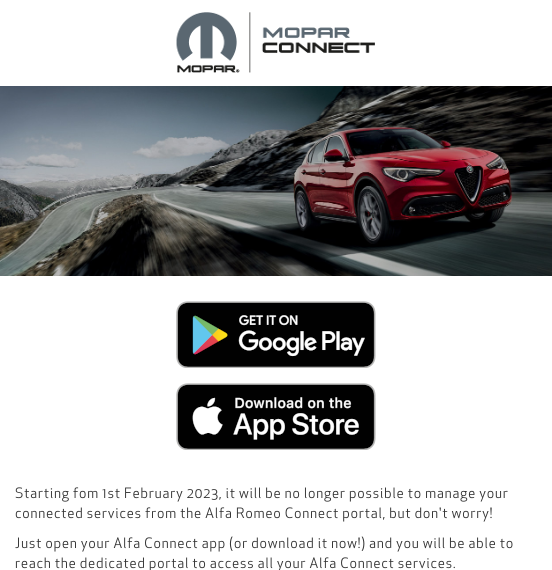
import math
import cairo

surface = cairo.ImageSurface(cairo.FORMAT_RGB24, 552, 570)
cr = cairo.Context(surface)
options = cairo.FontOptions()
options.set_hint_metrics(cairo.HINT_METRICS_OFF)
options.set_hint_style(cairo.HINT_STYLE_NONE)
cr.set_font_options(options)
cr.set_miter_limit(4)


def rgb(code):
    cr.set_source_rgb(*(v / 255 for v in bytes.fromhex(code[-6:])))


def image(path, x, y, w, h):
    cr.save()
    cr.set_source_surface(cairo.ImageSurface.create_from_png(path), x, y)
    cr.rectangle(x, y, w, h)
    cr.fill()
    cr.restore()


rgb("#ffffff")
cr.paint()
image("img/1.png", 176, 12, 199, 61)
image("img/2.png", 0, 86, 552, 190)
image("img/3.png", 176, 301, 200, 67)
image("img/4.png", 176, 383, 200, 67)
image("img/5.png", 15, 487, 493, 15)
image("img/6.png", 15, 507, 477, 15)
image("img/7.png", 15, 536, 498, 16)
image("img/8.png", 15, 557, 440, 13)
surface.write_to_png("page.png")
